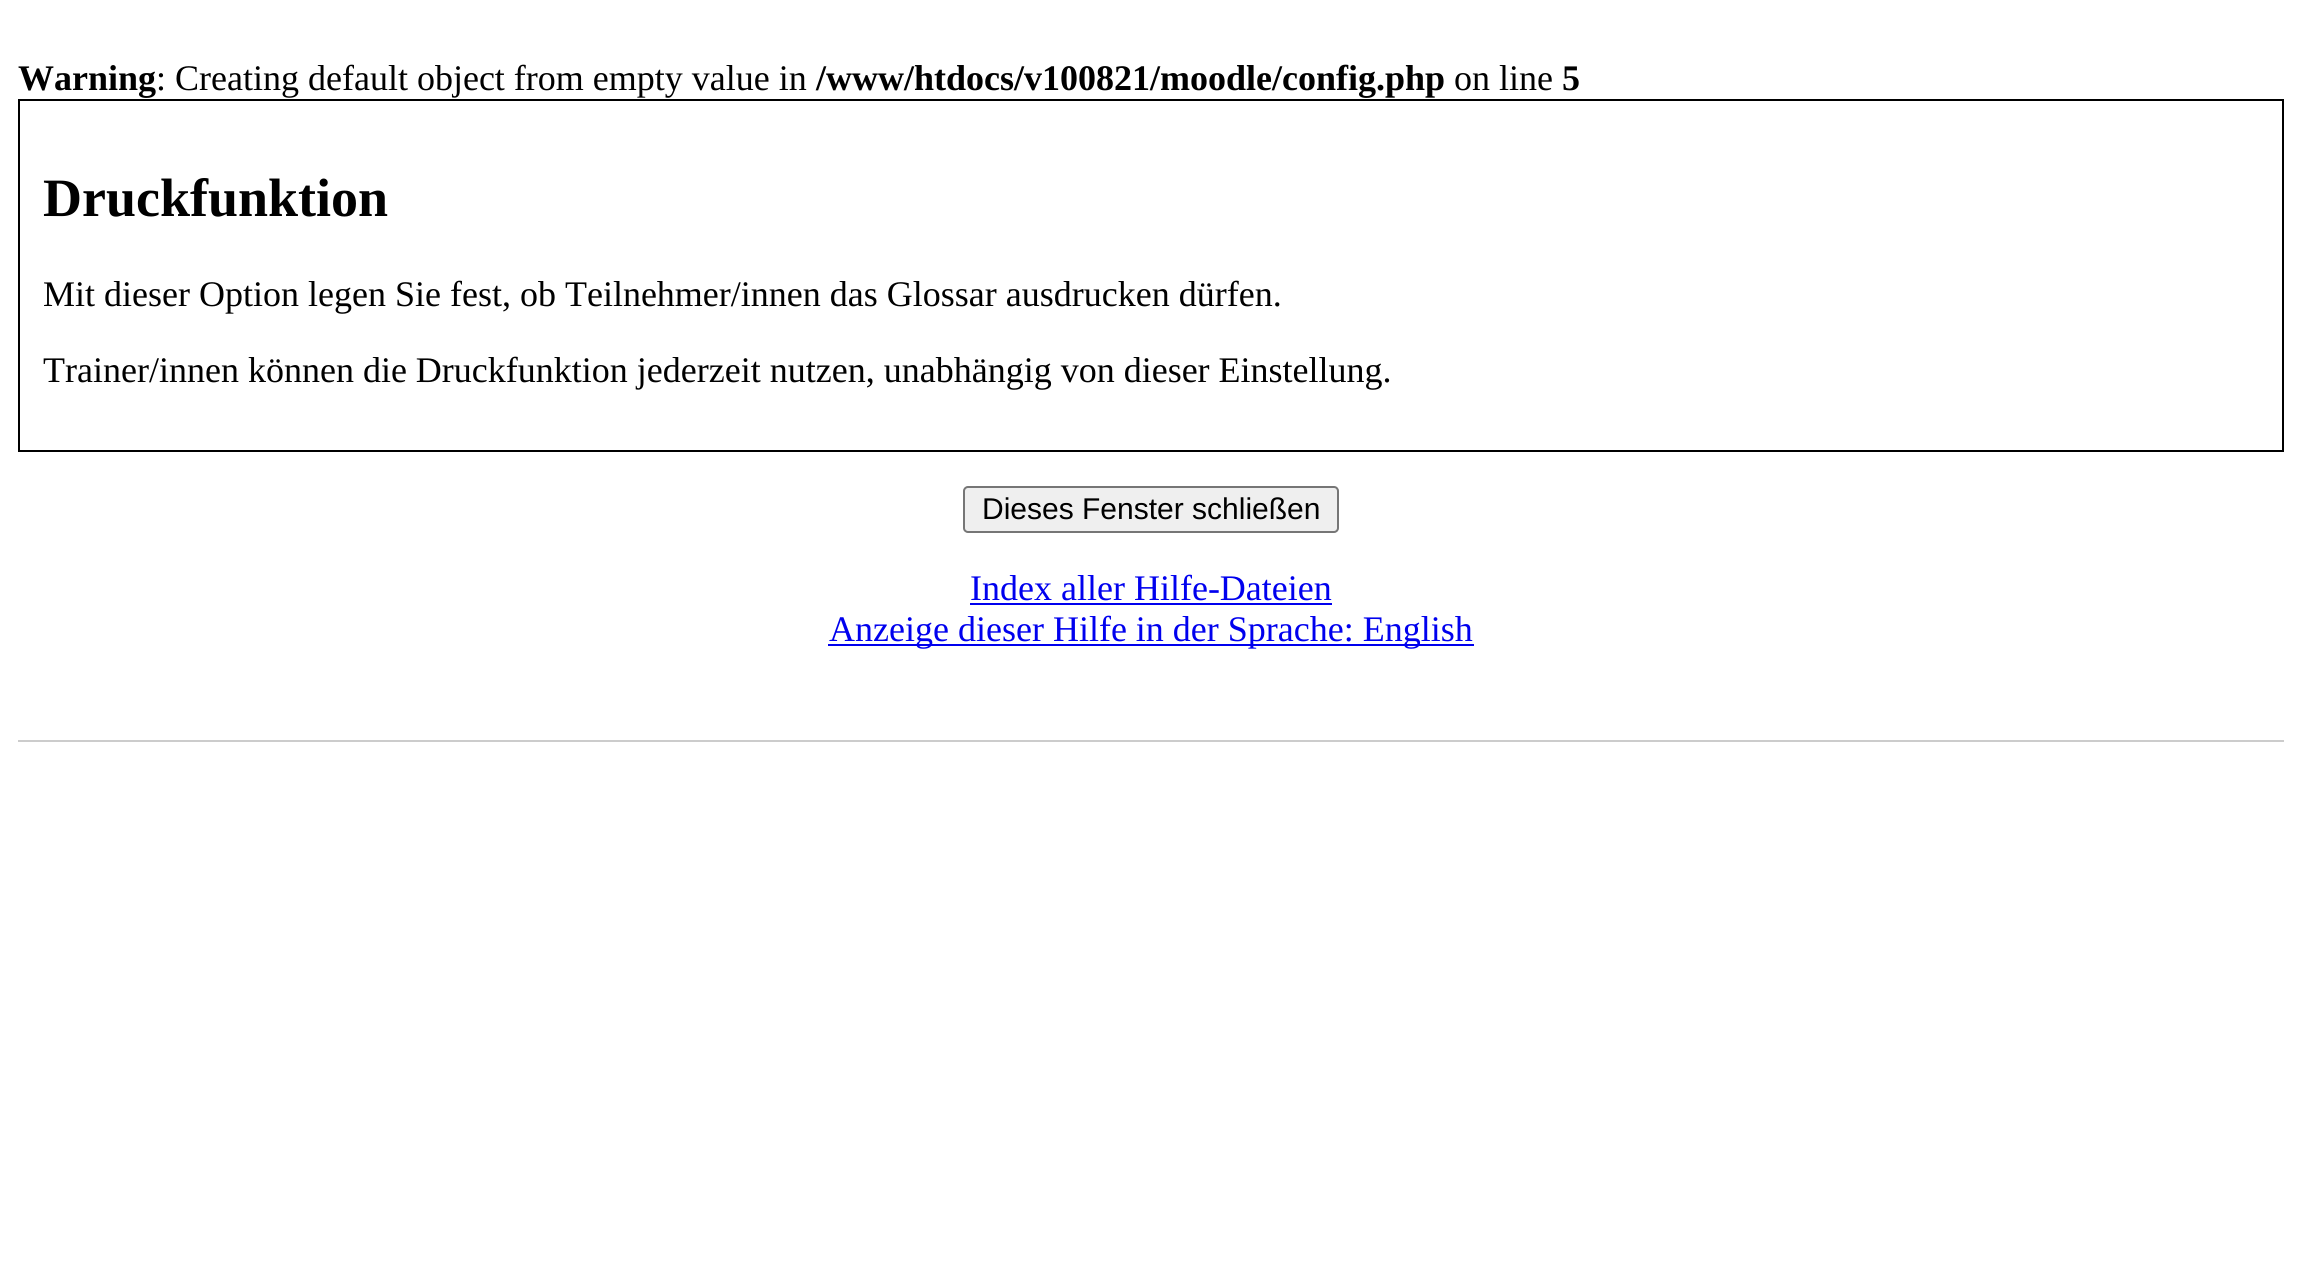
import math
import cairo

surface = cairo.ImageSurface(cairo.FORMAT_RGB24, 2300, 1278)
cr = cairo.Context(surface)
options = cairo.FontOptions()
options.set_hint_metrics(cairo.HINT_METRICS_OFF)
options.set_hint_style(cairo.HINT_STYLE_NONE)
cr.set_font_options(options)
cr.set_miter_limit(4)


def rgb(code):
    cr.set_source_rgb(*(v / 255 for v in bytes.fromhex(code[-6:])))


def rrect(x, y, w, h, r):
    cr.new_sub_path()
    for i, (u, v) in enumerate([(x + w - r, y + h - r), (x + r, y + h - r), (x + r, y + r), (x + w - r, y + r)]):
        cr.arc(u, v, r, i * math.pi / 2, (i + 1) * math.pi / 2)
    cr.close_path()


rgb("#ffffff")
cr.paint()
cr.rectangle(19, 100, 2264, 351)
rgb("#000000")
cr.stroke()
rgb("#efefef")
rrect(964, 487, 374, 45, 4)
cr.fill_preserve()
rgb("#767676")
cr.stroke()
for x, y, w, h, color in [
    (970, 603, 362, 2, "#0000ee"),
    (828, 644, 646, 2, "#0000ee"),
    (18, 740, 2266, 2, "#cccccc"),
]:
    rgb(color)
    cr.rectangle(x, y, w, h)
    cr.fill()
cr.select_font_face("Liberation Serif", cairo.FONT_SLANT_NORMAL, cairo.FONT_WEIGHT_BOLD)
cr.set_font_size(36)
rgb("#000000")
cr.move_to(18, 90)
cr.show_text("Warning")
cr.select_font_face("Liberation Serif")
cr.move_to(156, 90)
cr.show_text(": Creating default object from empty value in")
cr.select_font_face("Liberation Serif", cairo.FONT_SLANT_NORMAL, cairo.FONT_WEIGHT_BOLD)
cr.move_to(816, 90)
cr.show_text("/www/htdocs/v100821/moodle/config.php")
cr.select_font_face("Liberation Serif")
cr.move_to(1454, 90)
cr.show_text("on line")
cr.select_font_face("Liberation Serif", cairo.FONT_SLANT_NORMAL, cairo.FONT_WEIGHT_BOLD)
cr.move_to(1562, 90)
cr.show_text("5")
cr.set_font_size(54)
cr.move_to(43, 216)
cr.show_text("Druckfunktion")
cr.select_font_face("Liberation Serif")
cr.set_font_size(36)
cr.move_to(43, 306)
cr.show_text("Mit dieser Option legen Sie fest, ob Teilnehmer/innen das Glossar ausdrucken dürfen.")
cr.move_to(43, 382)
cr.show_text("Trainer/innen können die Druckfunktion jederzeit nutzen, unabhängig von dieser Einstellung.")
cr.select_font_face("Liberation Sans")
cr.set_font_size(30)
cr.move_to(982, 519)
cr.show_text("Dieses Fenster schließen")
cr.select_font_face("Liberation Serif")
cr.set_font_size(36)
rgb("#0000ee")
cr.move_to(970, 600)
cr.show_text("Index aller Hilfe-Dateien")
cr.move_to(829, 641)
cr.show_text("Anzeige dieser Hilfe in der Sprache: English")
surface.write_to_png("page.png")
